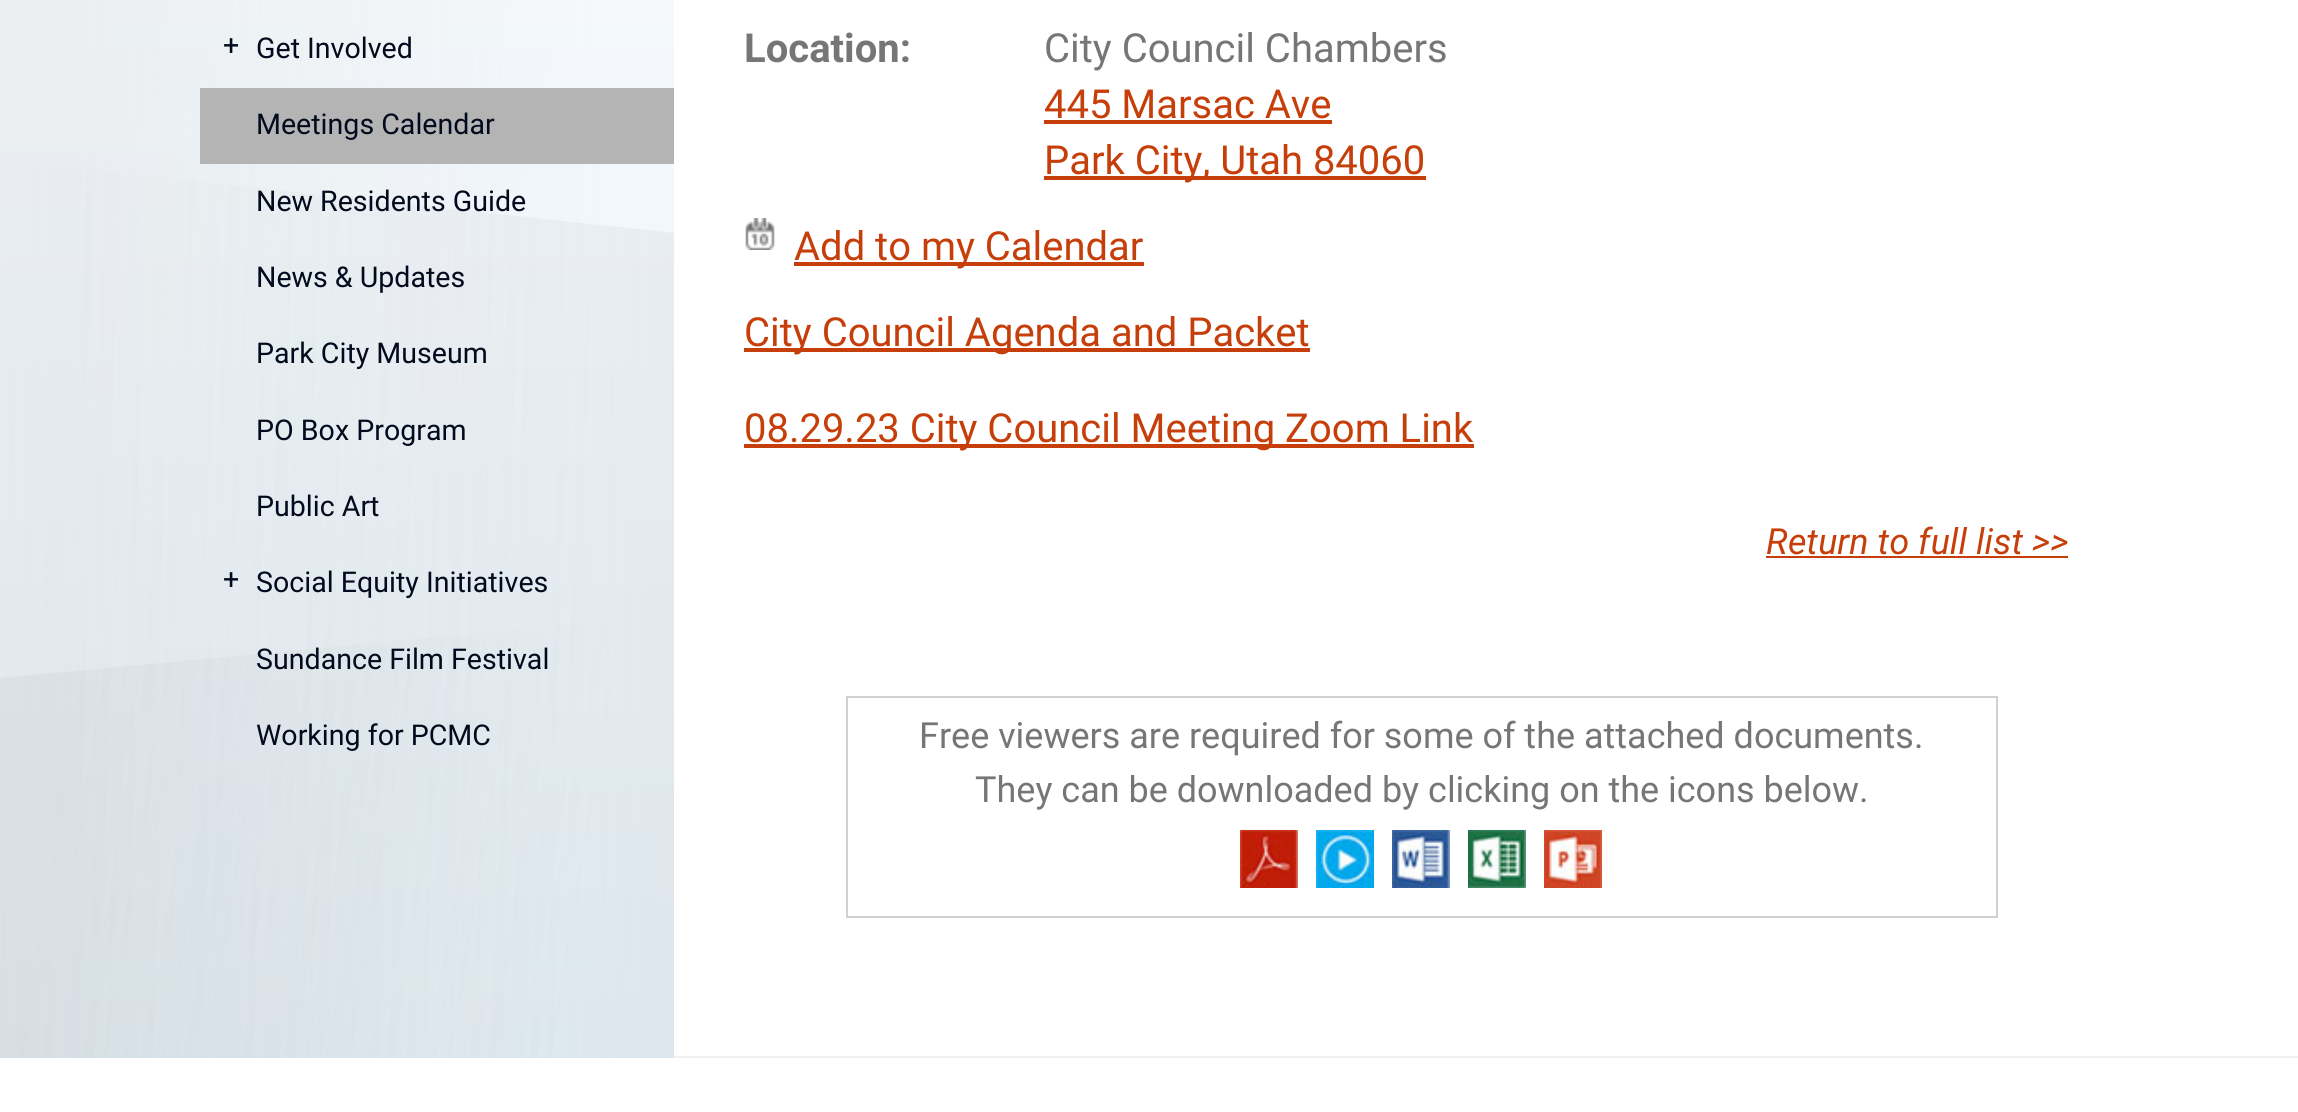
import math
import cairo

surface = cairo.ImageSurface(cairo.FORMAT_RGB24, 2298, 1112)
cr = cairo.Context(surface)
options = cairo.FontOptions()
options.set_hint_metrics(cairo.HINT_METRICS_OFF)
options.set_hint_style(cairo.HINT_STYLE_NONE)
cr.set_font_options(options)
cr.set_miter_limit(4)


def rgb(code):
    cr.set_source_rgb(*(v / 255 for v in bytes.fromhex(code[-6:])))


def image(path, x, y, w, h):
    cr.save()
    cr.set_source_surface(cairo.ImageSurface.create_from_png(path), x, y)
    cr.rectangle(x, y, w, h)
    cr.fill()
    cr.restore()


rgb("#ffffff")
cr.paint()
gradient = cairo.LinearGradient(337, -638, 337, 1058)
gradient.add_color_stop_rgba(0, 1, 1, 1, 1)
gradient.add_color_stop_rgba(1, 0.894, 0.937, 0.969, 1)
cr.set_source(gradient)
cr.rectangle(0, 0, 674, 1058)
cr.fill()
cr.save()
cr.rectangle(0, 0, 674, 1058)
cr.clip()
gradient = cairo.LinearGradient(578, 688, 32, 660)
gradient.add_color_stop_rgba(0, 0.706, 0.706, 0.706, 0)
gradient.add_color_stop_rgba(1, 0.706, 0.706, 0.706, 0.15)
cr.set_source(gradient)
cr.new_path()
cr.move_to(0, -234)
cr.line_to(674, -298)
cr.line_to(674, 1059)
cr.line_to(0, 1059)
cr.close_path()
cr.fill()
gradient = cairo.LinearGradient(0, 528, 674, 539)
gradient.add_color_stop_rgba(0, 0.706, 0.706, 0.706, 0)
gradient.add_color_stop_rgba(1, 0.706, 0.706, 0.706, 0.15)
cr.set_source(gradient)
cr.new_path()
cr.move_to(0, 160)
cr.line_to(674, 233)
cr.line_to(674, 1059)
cr.line_to(0, 1059)
cr.close_path()
cr.fill()
gradient = cairo.LinearGradient(578, 938, 44, 852)
gradient.add_color_stop_rgba(0, 0.706, 0.706, 0.706, 0)
gradient.add_color_stop_rgba(1, 0.706, 0.706, 0.706, 0.15)
cr.set_source(gradient)
cr.new_path()
cr.move_to(0, 678)
cr.line_to(674, 615)
cr.line_to(674, 1059)
cr.line_to(0, 1059)
cr.close_path()
cr.fill()
cr.restore()
rgb("#c63e09")
cr.rectangle(1044, 120, 288, 4)
cr.fill()
cr.rectangle(1044, 176, 382, 4)
cr.fill()
image("img/1.png", 745, 218, 30, 32)
for x, y, w, h, color in [
    (794, 262, 350, 4, "#c63e09"),
    (744, 348, 566, 4, "#c63e09"),
    (744, 444, 730, 4, "#c63e09"),
    (1766, 556, 302, 2, "#c63e09"),
]:
    rgb(color)
    cr.rectangle(x, y, w, h)
    cr.fill()
cr.rectangle(847, 697, 1150, 220)
rgb("#d0d0d0")
cr.stroke()
image("img/2.png", 1240, 830, 58, 58)
image("img/3.png", 1316, 830, 58, 58)
image("img/4.png", 1392, 830, 58, 58)
image("img/5.png", 1468, 830, 58, 58)
image("img/6.png", 1544, 830, 58, 58)
rgb("#b4b4b4")
cr.rectangle(200, 88, 474, 76)
cr.fill()
rgb("#f0f0f0")
cr.rectangle(674, 1056, 1624, 2)
cr.fill()
cr.select_font_face("Roboto", cairo.FONT_SLANT_NORMAL, cairo.FONT_WEIGHT_BOLD)
cr.set_font_size(40)
rgb("#767676")
cr.move_to(744, 62)
cr.show_text("Location:")
cr.select_font_face("Roboto")
cr.move_to(1044, 62)
cr.show_text("City Council Chambers")
rgb("#c63e09")
for x, y, s in [
    (1044, 118, "445 Marsac Ave"),
    (1044, 174, "Park City, Utah 84060"),
    (794, 260, "Add to my Calendar"),
    (744, 346, "City Council Agenda and Packet"),
    (744, 442, "08.29.23 City Council Meeting Zoom Link"),
]:
    cr.move_to(x, y)
    cr.show_text(s)
cr.select_font_face("Roboto", cairo.FONT_SLANT_ITALIC)
cr.set_font_size(36)
cr.move_to(1766, 554)
cr.show_text("Return to full list >>")
cr.select_font_face("Roboto")
rgb("#767676")
cr.move_to(919, 748)
cr.show_text("Free viewers are required for some of the attached documents.")
cr.move_to(975, 802)
cr.show_text("They can be downloaded by clicking on the icons below.")
cr.set_font_size(28.6)
rgb("#020b1d")
for x, y, s in [
    (223, 55, "+"),
    (256, 58, "Get Involved"),
    (256, 134, "Meetings Calendar"),
    (256, 211, "New Residents Guide"),
    (256, 287, "News & Updates"),
    (256, 363, "Park City Museum"),
    (256, 440, "PO Box Program"),
    (256, 516, "Public Art"),
    (223, 589, "+"),
    (256, 592, "Social Equity Initiatives"),
    (256, 669, "Sundance Film Festival"),
    (256, 745, "Working for PCMC"),
]:
    cr.move_to(x, y)
    cr.show_text(s)
surface.write_to_png("page.png")
